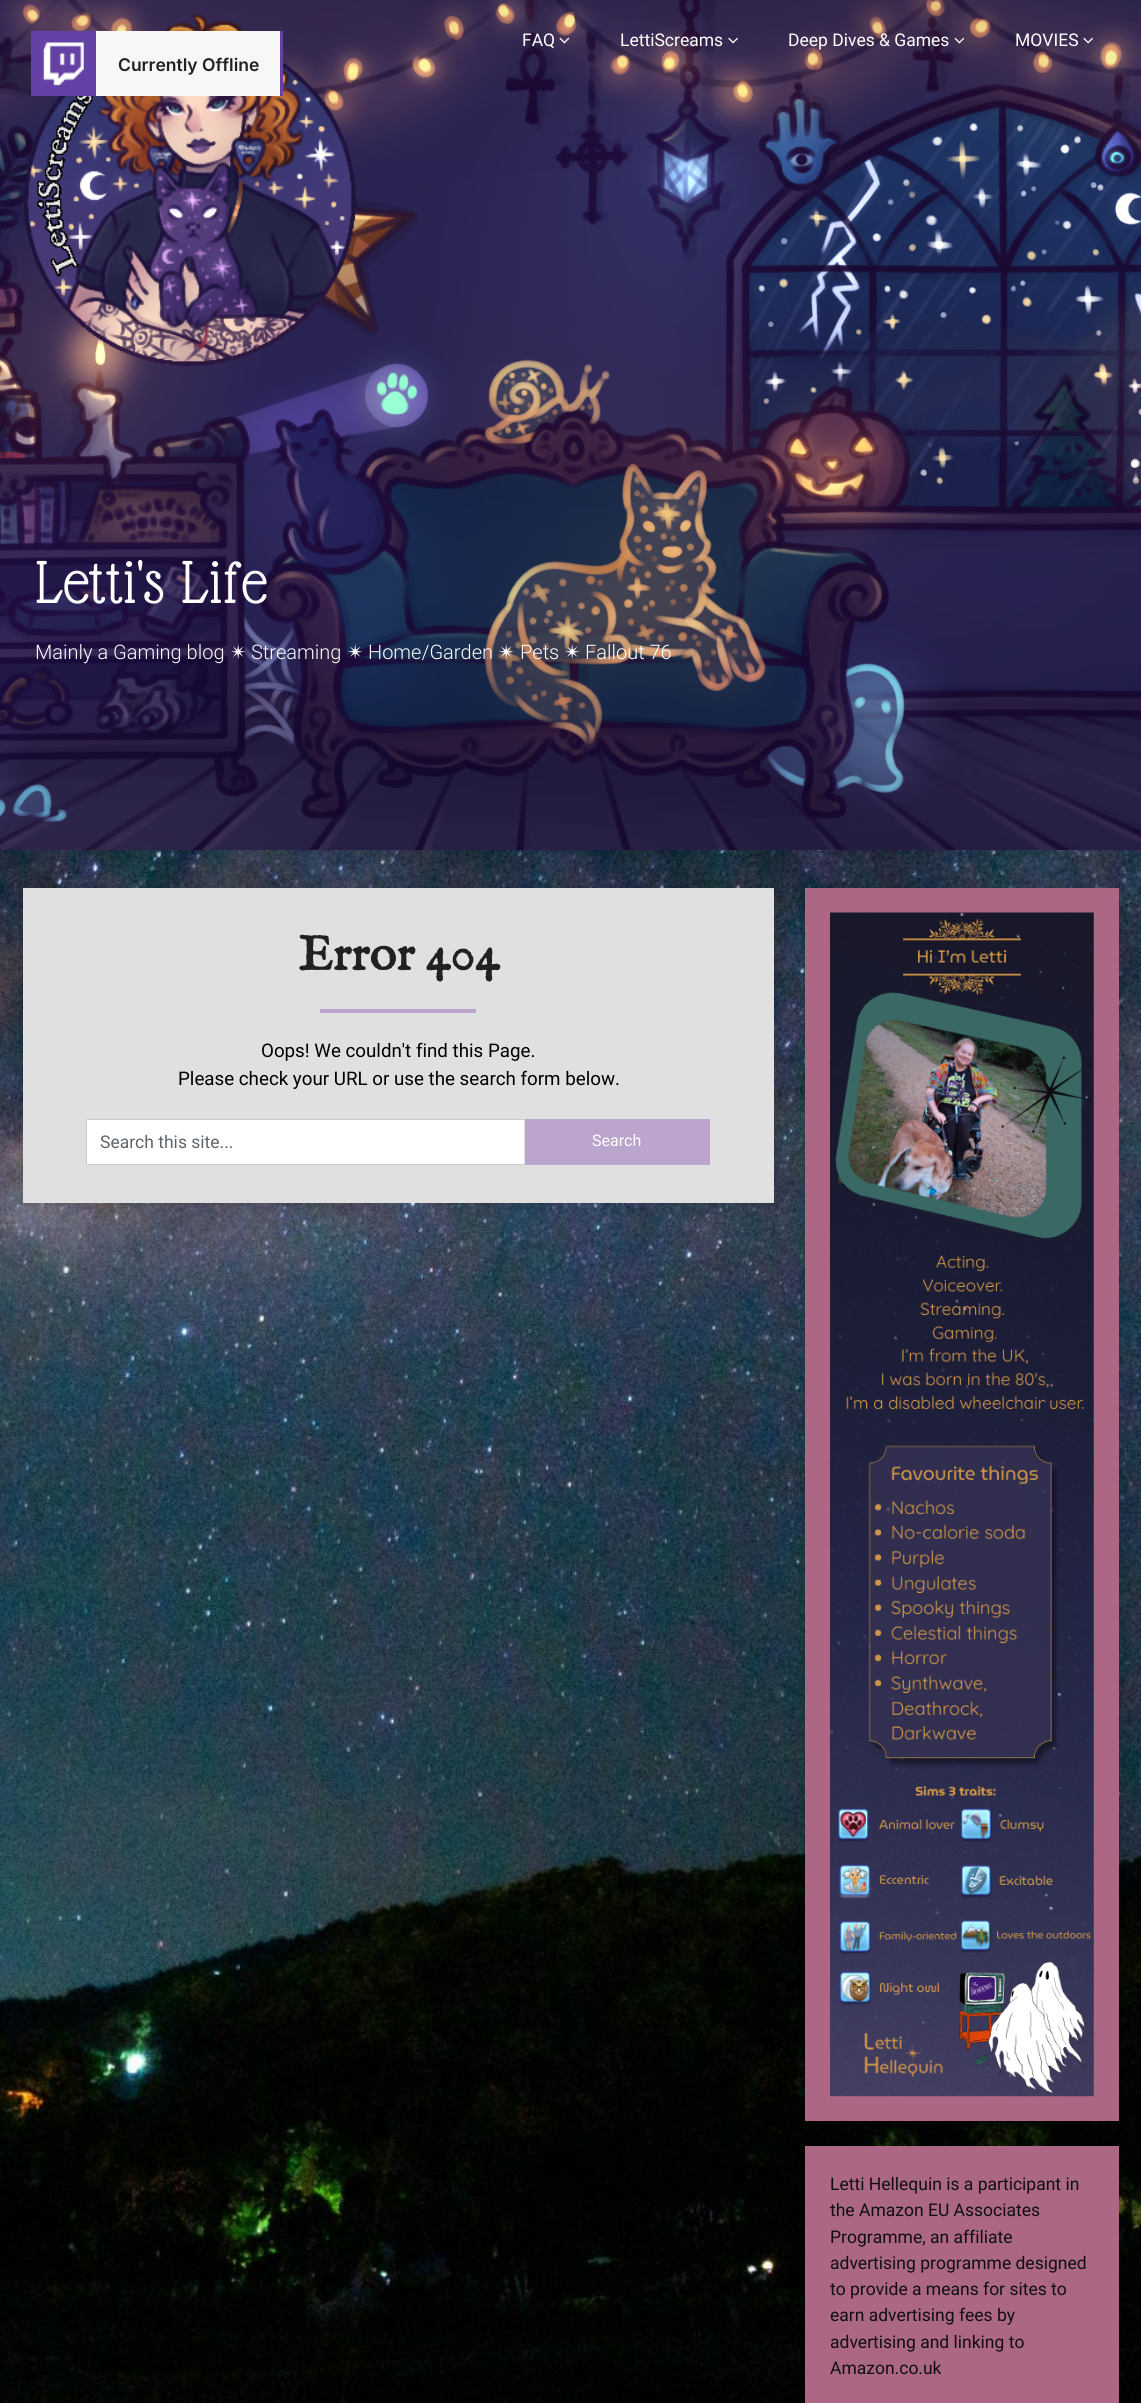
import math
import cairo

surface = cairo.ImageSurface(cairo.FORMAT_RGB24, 1141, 2403)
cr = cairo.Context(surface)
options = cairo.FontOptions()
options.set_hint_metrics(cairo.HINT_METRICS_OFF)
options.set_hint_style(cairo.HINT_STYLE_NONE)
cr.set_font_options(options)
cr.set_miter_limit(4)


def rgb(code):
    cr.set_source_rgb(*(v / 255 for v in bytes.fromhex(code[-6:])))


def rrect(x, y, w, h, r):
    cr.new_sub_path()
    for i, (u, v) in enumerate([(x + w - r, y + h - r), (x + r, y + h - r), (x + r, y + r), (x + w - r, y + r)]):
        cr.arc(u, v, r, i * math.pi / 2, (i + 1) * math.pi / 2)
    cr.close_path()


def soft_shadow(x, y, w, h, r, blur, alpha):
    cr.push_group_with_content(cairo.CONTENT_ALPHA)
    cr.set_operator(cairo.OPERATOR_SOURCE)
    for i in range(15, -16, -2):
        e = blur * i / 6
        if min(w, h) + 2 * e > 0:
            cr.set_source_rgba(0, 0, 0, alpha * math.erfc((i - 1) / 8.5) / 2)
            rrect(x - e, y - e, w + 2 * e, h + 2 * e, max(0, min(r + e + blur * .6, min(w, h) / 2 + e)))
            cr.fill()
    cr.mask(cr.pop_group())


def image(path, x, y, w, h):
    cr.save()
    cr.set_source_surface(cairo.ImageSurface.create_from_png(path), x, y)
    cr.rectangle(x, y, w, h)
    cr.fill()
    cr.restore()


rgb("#ffffff")
cr.paint()
image("img/1.png", 0, 850, 1141, 1553)
rgb("#000000")
soft_shadow(0, 0, 1141, 850, 0, 9.5, 0.2)
image("img/2.png", 0, 0, 1141, 850)
image("img/3.png", 24, 13, 333, 354)
image("img/4.png", 559, 37, 11, 7)
image("img/5.png", 728, 37, 10, 7)
image("img/6.png", 954, 37, 11, 7)
image("img/7.png", 1083, 37, 10, 7)
rgb("#6441a4")
cr.rectangle(31, 31, 65, 65)
cr.fill()
image("img/8.png", 43, 42, 41, 44)
rgb("#f7f7f8")
cr.rectangle(96, 31, 184, 65)
cr.fill()
rgb("#6441a4")
cr.rectangle(280, 31, 3, 65)
cr.fill()
rgb("#000000")
soft_shadow(23, 889, 751, 315, 0, 9.5, 0.15)
for x, y, w, h, color in [
    (23, 888, 751, 315, "#e0e0e0"),
    (320, 1009, 156, 4, "#bba5cc"),
    (87, 1120, 437, 44, "#ffffff"),
    (86, 1119, 438, 1, "#cccccc"),
    (86, 1164, 438, 1, "#cccccc"),
    (86, 1119, 1, 46, "#cccccc"),
    (525, 1119, 185, 46, "#bba5cc"),
]:
    rgb(color)
    cr.rectangle(x, y, w, h)
    cr.fill()
rgb("#000000")
soft_shadow(805, 889, 314, 1234, 0, 9.5, 0.15)
rgb("#ac6785")
cr.rectangle(805, 888, 314, 1233)
cr.fill()
image("img/9.png", 830, 912, 264, 1185)
rgb("#000000")
soft_shadow(805, 2148, 314, 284, 0, 9.5, 0.15)
rgb("#ac6785")
cr.rectangle(805, 2146, 314, 257)
cr.fill()
cr.select_font_face("Roboto")
cr.set_font_size(17.5)
rgb("#ffffff")
for x, y, s in [
    (522, 46, "FAQ"),
    (620, 46, "LettiScreams"),
    (788, 46, "Deep Dives & Games"),
    (1015, 46, "MOVIES"),
]:
    cr.move_to(x, y)
    cr.show_text(s)
cr.select_font_face("Glass Antiqua")
cr.set_font_size(66)
cr.move_to(35, 603)
cr.show_text("Letti's Life")
cr.select_font_face("Roboto Light")
cr.set_font_size(20)
cr.move_to(35, 659)
cr.show_text("Mainly a Gaming blog")
cr.select_font_face("DejaVu Sans")
cr.move_to(230, 659)
cr.show_text("✴")
cr.select_font_face("Roboto Light")
cr.move_to(251, 659)
cr.show_text("Streaming")
cr.select_font_face("DejaVu Sans")
cr.move_to(347, 659)
cr.show_text("✴")
cr.select_font_face("Roboto Light")
cr.move_to(368, 659)
cr.show_text("Home/Garden")
cr.select_font_face("DejaVu Sans")
cr.move_to(498, 659)
cr.show_text("✴")
cr.select_font_face("Roboto Light")
cr.move_to(520, 659)
cr.show_text("Pets")
cr.select_font_face("DejaVu Sans")
cr.move_to(564, 659)
cr.show_text("✴")
cr.select_font_face("Roboto Light")
cr.move_to(585, 659)
cr.show_text("Fallout 76")
cr.select_font_face("Inter SemiBold")
cr.set_font_size(17.5)
rgb("#212121")
cr.move_to(118, 71)
cr.show_text("Currently Offline")
cr.select_font_face("IM FELL English", cairo.FONT_SLANT_NORMAL, cairo.FONT_WEIGHT_BOLD)
cr.set_font_size(50)
cr.move_to(298, 970)
cr.show_text("Error 404")
cr.select_font_face("Roboto")
cr.set_font_size(18.75)
rgb("#000000")
cr.move_to(261, 1057)
cr.show_text("Oops! We couldn't find this Page.")
cr.move_to(178, 1085)
cr.show_text("Please check your URL or use the search form below.")
cr.set_font_size(17.5)
rgb("#5e656d")
cr.move_to(100, 1148)
cr.show_text("Search this site...")
cr.set_font_size(16)
rgb("#ffffff")
cr.move_to(592, 1146)
cr.show_text("Search")
cr.set_font_size(17.5)
rgb("#0f0f0f")
for x, y, s in [
    (830, 2190, "Letti Hellequin is a participant in"),
    (830, 2216, "the Amazon EU Associates"),
    (830, 2243, "Programme, an affiliate"),
    (830, 2269, "advertising programme designed"),
    (830, 2295, "to provide a means for sites to"),
    (830, 2321, "earn advertising fees by"),
    (830, 2348, "advertising and linking to"),
    (830, 2374, "Amazon.co.uk"),
]:
    cr.move_to(x, y)
    cr.show_text(s)
surface.write_to_png("page.png")
